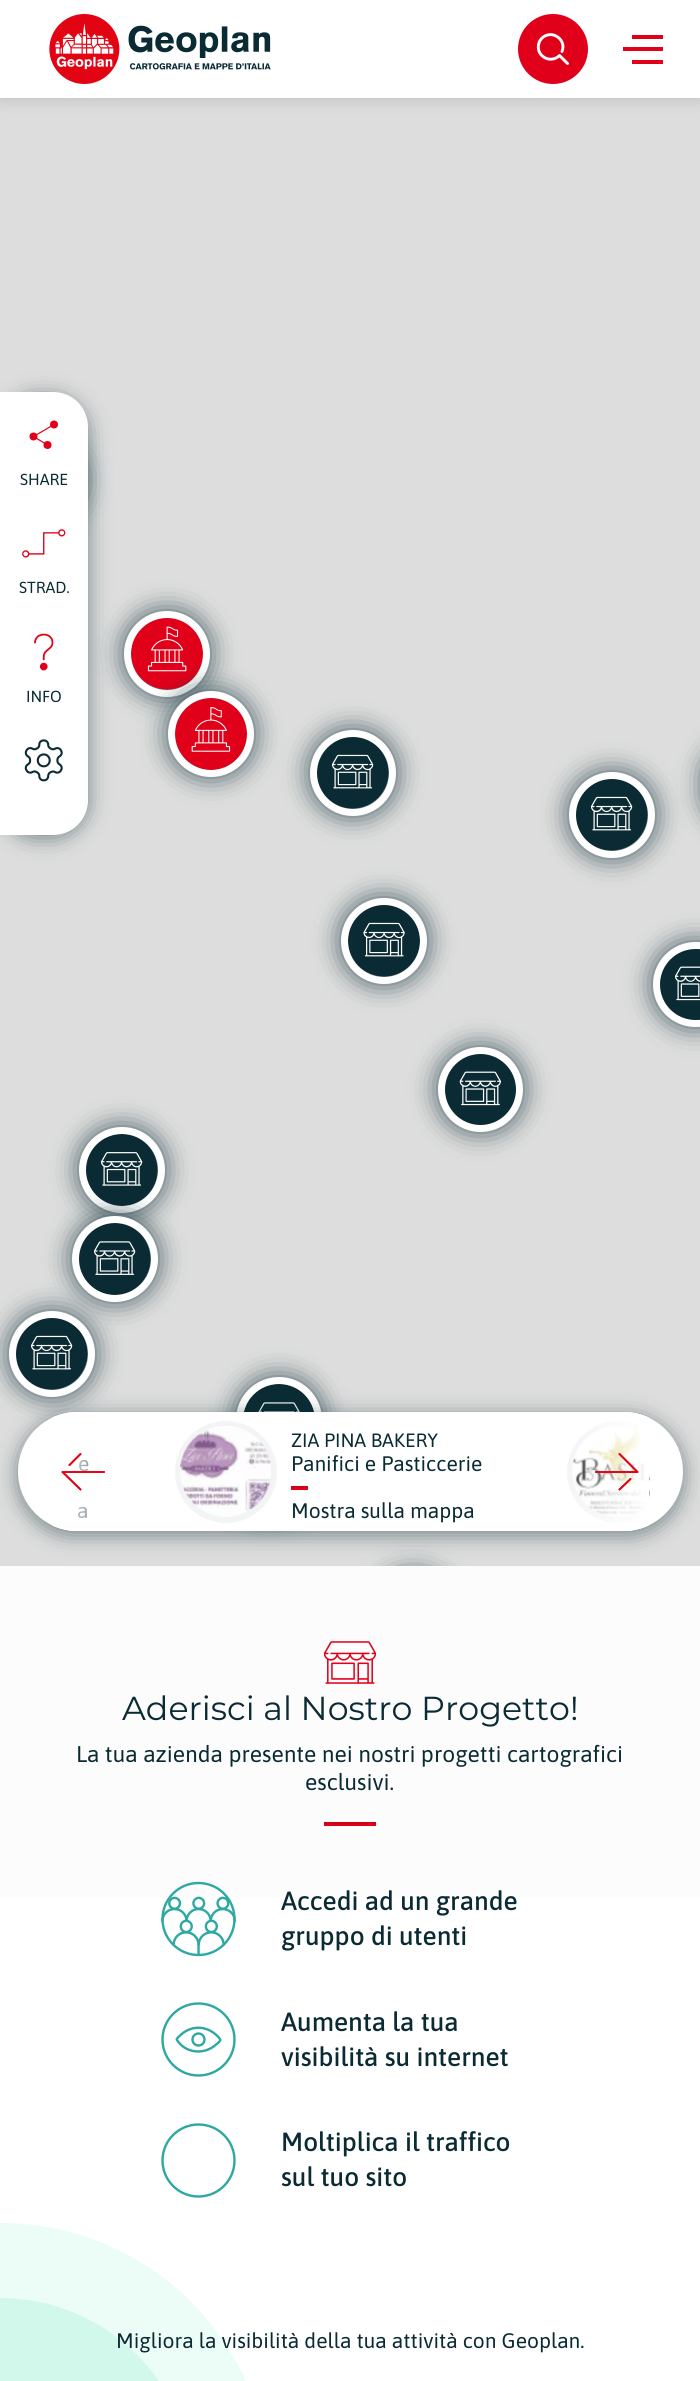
import math
import cairo

surface = cairo.ImageSurface(cairo.FORMAT_RGB24, 700, 2381)
cr = cairo.Context(surface)
options = cairo.FontOptions()
options.set_hint_metrics(cairo.HINT_METRICS_OFF)
options.set_hint_style(cairo.HINT_STYLE_NONE)
cr.set_font_options(options)
cr.set_miter_limit(4)


def rgb(code):
    cr.set_source_rgb(*(v / 255 for v in bytes.fromhex(code[-6:])))


def rrect(x, y, w, h, r):
    cr.new_sub_path()
    for i, (u, v) in enumerate([(x + w - r, y + h - r), (x + r, y + h - r), (x + r, y + r), (x + w - r, y + r)]):
        cr.arc(u, v, r, i * math.pi / 2, (i + 1) * math.pi / 2)
    cr.close_path()


def soft_shadow(x, y, w, h, r, blur, alpha):
    cr.push_group_with_content(cairo.CONTENT_ALPHA)
    cr.set_operator(cairo.OPERATOR_SOURCE)
    for i in range(15, -16, -2):
        e = blur * i / 6
        if min(w, h) + 2 * e > 0:
            cr.set_source_rgba(0, 0, 0, alpha * math.erfc((i - 1) / 8.5) / 2)
            rrect(x - e, y - e, w + 2 * e, h + 2 * e, max(0, min(r + e + blur * .6, min(w, h) / 2 + e)))
            cr.fill()
    cr.mask(cr.pop_group())


def image(path, x, y, w, h):
    cr.save()
    cr.set_source_surface(cairo.ImageSurface.create_from_png(path), x, y)
    cr.rectangle(x, y, w, h)
    cr.fill()
    cr.restore()


rgb("#ffffff")
cr.paint()
rgb("#dddddd")
cr.rectangle(0, 98, 700, 1468)
cr.fill()
rgb("#000000")
soft_shadow(0, 0, 700, 98, 0, 9, 0.15)
rgb("#ffffff")
cr.rectangle(0, 0, 700, 98)
cr.fill()
image("img/1.png", 49, 14, 222, 70)
rgb("#e1001a")
cr.arc(553, 49, 35, 0, 2 * math.pi)
cr.fill()
cr.new_path()
cr.move_to(562, 51.5)
cr.curve_to(564.5, 45.5, 562, 39, 556, 36)
cr.curve_to(550.5, 33, 543.5, 35, 540, 40.5)
cr.curve_to(537, 46, 538, 53, 543, 56.5)
cr.curve_to(548, 60.5, 555, 60, 559.5, 55.5)
cr.move_to(559.5, 55.5)
cr.line_to(567.5, 63.5)
rgb("#ffffff")
cr.set_line_width(2.9)
cr.set_line_cap(cairo.LINE_CAP_ROUND)
cr.set_line_join(cairo.LINE_JOIN_ROUND)
cr.stroke()
for x, y, w, h, color in [
    (632, 35, 31, 4, "#e1001a"),
    (623, 47, 40, 4, "#e1001a"),
    (632, 60, 31, 4, "#e1001a"),
]:
    rgb(color)
    cr.rectangle(x, y, w, h)
    cr.fill()
rgb("#0a2b33")
soft_shadow(-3, 438, 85, 85, 42.5, 13, 0.75)
soft_shadow(124, 611, 86, 86, 43, 13, 0.75)
image("img/2.png", 131, 618, 72, 72)
cr.arc(167, 654, 39.5, 0, 2 * math.pi)
rgb("#ffffff")
cr.set_line_width(7)
cr.set_line_cap(cairo.LINE_CAP_BUTT)
cr.set_line_join(cairo.LINE_JOIN_MITER)
cr.stroke()
rgb("#0a2b33")
soft_shadow(168, 691, 86, 86, 43, 13, 0.75)
image("img/3.png", 175, 698, 72, 72)
cr.arc(211, 734, 39.5, 0, 2 * math.pi)
rgb("#ffffff")
cr.stroke()
rgb("#0a2b33")
soft_shadow(310, 730, 86, 86, 43, 13, 0.75)
image("img/4.png", 317, 737, 72, 72)
cr.arc(353, 773, 39.5, 0, 2 * math.pi)
rgb("#ffffff")
cr.stroke()
rgb("#0a2b33")
soft_shadow(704, 742, 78, 86, 42.5, 13, 0.75)
soft_shadow(569, 772, 86, 86, 43, 13, 0.75)
image("img/4.png", 576, 779, 72, 72)
cr.arc(612, 815, 39.5, 0, 2 * math.pi)
rgb("#ffffff")
cr.stroke()
rgb("#0a2b33")
soft_shadow(341, 898, 86, 86, 43, 13, 0.75)
image("img/5.png", 348, 905, 72, 72)
cr.arc(384, 941, 39.5, 0, 2 * math.pi)
rgb("#ffffff")
cr.stroke()
rgb("#0a2b33")
soft_shadow(653, 942, 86, 85, 42.5, 13, 0.75)
image("img/6.png", 660, 949, 40, 71)
rrect(656.5, 945.5, 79, 78, 39)
rgb("#ffffff")
cr.stroke()
rgb("#0a2b33")
soft_shadow(79, 1127, 86, 86, 43, 13, 0.75)
image("img/7.png", 86, 1134, 72, 72)
cr.arc(122, 1170, 39.5, 0, 2 * math.pi)
rgb("#ffffff")
cr.stroke()
rgb("#0a2b33")
soft_shadow(438, 1047, 85, 85, 42.5, 13, 0.75)
image("img/8.png", 445, 1054, 71, 71)
cr.arc(480.5, 1089.5, 39, 0, 2 * math.pi)
rgb("#ffffff")
cr.stroke()
rgb("#0a2b33")
soft_shadow(72, 1216, 86, 86, 43, 13, 0.75)
image("img/9.png", 79, 1223, 72, 72)
cr.arc(115, 1259, 39.5, 0, 2 * math.pi)
rgb("#ffffff")
cr.stroke()
rgb("#0a2b33")
soft_shadow(9, 1311, 86, 86, 43, 13, 0.75)
image("img/10.png", 16, 1318, 72, 72)
cr.arc(52, 1354, 39.5, 0, 2 * math.pi)
rgb("#ffffff")
cr.stroke()
rgb("#0a2b33")
soft_shadow(236, 1377, 86, 86, 43, 13, 0.75)
image("img/11.png", 244, 1384, 70, 28)
cr.arc(279, 1420, 39.5, 0, 2 * math.pi)
rgb("#ffffff")
cr.stroke()
rgb("#0a2b33")
soft_shadow(226, 1428, 86, 86, 43, 13, 0.75)
soft_shadow(371, 1573, 86, 86, 43, 13, 0.75)
soft_shadow(0, 396, 88, 442, 35, 10.5, 0.5)
rgb("#ffffff")
cr.new_path()
cr.move_to(0, 392)
cr.line_to(53, 392)
cr.curve_to(72.5, 392, 88, 407.5, 88, 427)
cr.line_to(88, 800)
cr.curve_to(88, 819.5, 72.5, 835, 53, 835)
cr.line_to(0, 835)
cr.close_path()
cr.fill()
rgb("#e1001a")
cr.arc(33.5, 436.5, 4, 0, 2 * math.pi)
cr.fill()
cr.arc(54, 424.5, 4, 0, 2 * math.pi)
cr.fill()
cr.arc(47.5, 445, 4, 0, 2 * math.pi)
cr.fill()
cr.new_path()
cr.move_to(54, 424.5)
cr.line_to(33.5, 436.5)
cr.line_to(47.5, 445)
cr.set_line_width(1.2)
cr.stroke()
image("img/12.png", 22, 529, 44, 29)
image("img/13.png", 34, 633, 20, 38)
image("img/14.png", 24, 739, 39, 43)
rgb("#0a2b33")
soft_shadow(18, 1416, 665, 119, 59.5, 10.5, 0.5)
rgb("#ffffff")
rrect(18, 1412, 665, 119, 59.5)
cr.fill()
cr.save()
cr.rectangle(51, 1412, 598, 119)
cr.clip()
rrect(558, 1412, 125, 119, 59.5)
cr.fill()
rgb("#f3f4f5")
cr.arc(618, 1472, 51, 0, 2 * math.pi)
cr.fill()
cr.restore()
image("img/16.png", 572, 1426, 78, 91)
cr.save()
rrect(18, 1412, 665, 119, 59.5)
cr.clip()
gradient = cairo.LinearGradient(649, 1472, 562, 1472)
gradient.add_color_stop_rgba(0, 1, 1, 1, 1)
gradient.add_color_stop_rgba(1, 1, 1, 1, 0)
cr.set_source(gradient)
cr.rectangle(564, 1412, 85, 119)
cr.fill()
cr.restore()
cr.save()
cr.rectangle(51, 1412, 598, 119)
cr.clip()
rrect(18, 1412, 131, 119, 59.5)
cr.fill()
cr.restore()
rgb("#f3f4f5")
cr.arc(226, 1472, 51, 0, 2 * math.pi)
cr.fill()
image("img/15.png", 180, 1426, 91, 91)
rgb("#e1001a")
cr.rectangle(291, 1488, 17, 2)
cr.fill()
rgb("#cb0017")
cr.rectangle(291, 1486, 17, 2)
cr.fill()
cr.new_path()
cr.move_to(619.5, 1489.5)
cr.line_to(630.5, 1479)
cr.move_to(637.5, 1472)
cr.line_to(596, 1472)
cr.move_to(637.5, 1472)
cr.line_to(619.5, 1454)
rgb("#e30413")
cr.set_line_width(1.8)
cr.set_line_cap(cairo.LINE_CAP_ROUND)
cr.set_line_join(cairo.LINE_JOIN_ROUND)
cr.stroke()
cr.new_path()
cr.move_to(619.5, 1489.5)
cr.line_to(630.5, 1479)
cr.move_to(637.5, 1472)
cr.line_to(596, 1472)
cr.move_to(637.5, 1472)
cr.line_to(619.5, 1454)
cr.stroke()
gradient = cairo.LinearGradient(350, 1566, 350, 2133)
gradient.add_color_stop_rgba(0, 0.988, 0.988, 0.988, 1)
gradient.add_color_stop_rgba(0.5, 0.988, 0.988, 0.988, 1)
gradient.add_color_stop_rgba(1, 1, 1, 1, 1)
cr.set_source(gradient)
cr.rectangle(0, 1566, 700, 331)
cr.fill()
image("img/17.png", 324, 1641, 52, 43)
rgb("#e1001a")
cr.rectangle(324, 1824, 52, 2)
cr.fill()
rgb("#cb0017")
cr.rectangle(324, 1822, 52, 2)
cr.fill()
image("img/18.png", 161, 1881, 75, 76)
cr.arc(198.5, 2039.5, 36, 0, 2 * math.pi)
rgb("#2da8a2")
cr.set_line_width(2.4)
cr.set_line_cap(cairo.LINE_CAP_BUTT)
cr.set_line_join(cairo.LINE_JOIN_MITER)
cr.stroke()
cr.arc(198.5, 2039.5, 6, 0, 2 * math.pi)
cr.stroke()
cr.new_path()
cr.move_to(220, 2039)
cr.curve_to(221.5, 2041, 216.5, 2044, 215.5, 2045)
cr.curve_to(204, 2055, 185.5, 2053.5, 177, 2040)
cr.curve_to(176, 2039, 178, 2037.5, 179, 2036.5)
cr.curve_to(191.5, 2023.5, 209.5, 2025.5, 220, 2039)
cr.close_path()
cr.set_line_cap(cairo.LINE_CAP_ROUND)
cr.stroke()
cr.arc(198.5, 2160.5, 36, 0, 2 * math.pi)
cr.set_line_cap(cairo.LINE_CAP_BUTT)
cr.stroke()
rgb("#ecfcf7")
rrect(-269, 2223, 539, 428, 269.5)
cr.fill()
rgb("#d2f8ec")
cr.new_path()
cr.move_to(0, 2298)
cr.curve_to(107, 2298, 194, 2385, 194, 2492)
cr.line_to(194, 2381)
cr.curve_to(194, 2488, 107, 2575, 0, 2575)
cr.close_path()
cr.fill()
cr.select_font_face("Asap")
cr.set_font_size(16)
rgb("#0a2b33")
for x, y, s in [
    (20, 485, "SHARE"),
    (19, 593, "STRAD."),
    (26, 702, "INFO"),
]:
    cr.move_to(x, y)
    cr.show_text(s)
cr.set_font_size(21)
cr.move_to(78, 1471)
cr.show_text("e")
cr.move_to(77, 1518)
cr.show_text("a")
cr.save()
rrect(18, 1412, 665, 119, 59.5)
cr.clip()
gradient = cairo.LinearGradient(51, 1472, 138, 1472)
gradient.add_color_stop_rgba(0, 1, 1, 1, 1)
gradient.add_color_stop_rgba(1, 1, 1, 1, 0)
cr.set_source(gradient)
cr.rectangle(51, 1412, 85, 119)
cr.fill()
cr.restore()
cr.set_font_size(19.25)
cr.move_to(291, 1447)
cr.show_text("ZIA PINA BAKERY")
cr.set_font_size(21)
cr.move_to(291, 1471)
cr.show_text("Panifici e Pasticcerie")
cr.move_to(291, 1518)
cr.show_text("Mostra sulla mappa")
cr.new_path()
cr.move_to(80.5, 1454)
cr.line_to(69.5, 1465)
cr.move_to(62.5, 1472)
cr.line_to(104, 1472)
cr.move_to(62.5, 1472)
cr.line_to(80.5, 1489.5)
rgb("#e30413")
cr.set_line_width(1.8)
cr.set_line_cap(cairo.LINE_CAP_ROUND)
cr.set_line_join(cairo.LINE_JOIN_ROUND)
cr.stroke()
cr.new_path()
cr.move_to(80.5, 1454)
cr.line_to(69.5, 1465)
cr.move_to(62.5, 1472)
cr.line_to(104, 1472)
cr.move_to(62.5, 1472)
cr.line_to(80.5, 1489.5)
cr.stroke()
cr.select_font_face("Montserrat")
cr.set_font_size(33.25)
rgb("#0a2b33")
cr.move_to(122, 1720)
cr.show_text("Aderisci al Nostro Progetto!")
cr.select_font_face("Asap")
cr.set_font_size(22.75)
cr.move_to(76, 1762)
cr.show_text("La tua azienda presente nei nostri progetti cartografici")
cr.move_to(305, 1790)
cr.show_text("esclusivi.")
cr.select_font_face("Asap Medium")
cr.set_font_size(26.25)
for x, y, s in [
    (281, 1910, "Accedi ad un grande"),
    (281, 1945, "gruppo di utenti"),
    (281, 2031, "Aumenta la tua"),
    (281, 2066, "visibilità su internet"),
    (281, 2151, "Moltiplica il traffico"),
    (281, 2186, "sul tuo sito"),
]:
    cr.move_to(x, y)
    cr.show_text(s)
cr.select_font_face("Asap")
cr.set_font_size(21)
cr.move_to(116, 2348)
cr.show_text("Migliora la visibilità della tua attività con Geoplan.")
surface.write_to_png("page.png")
